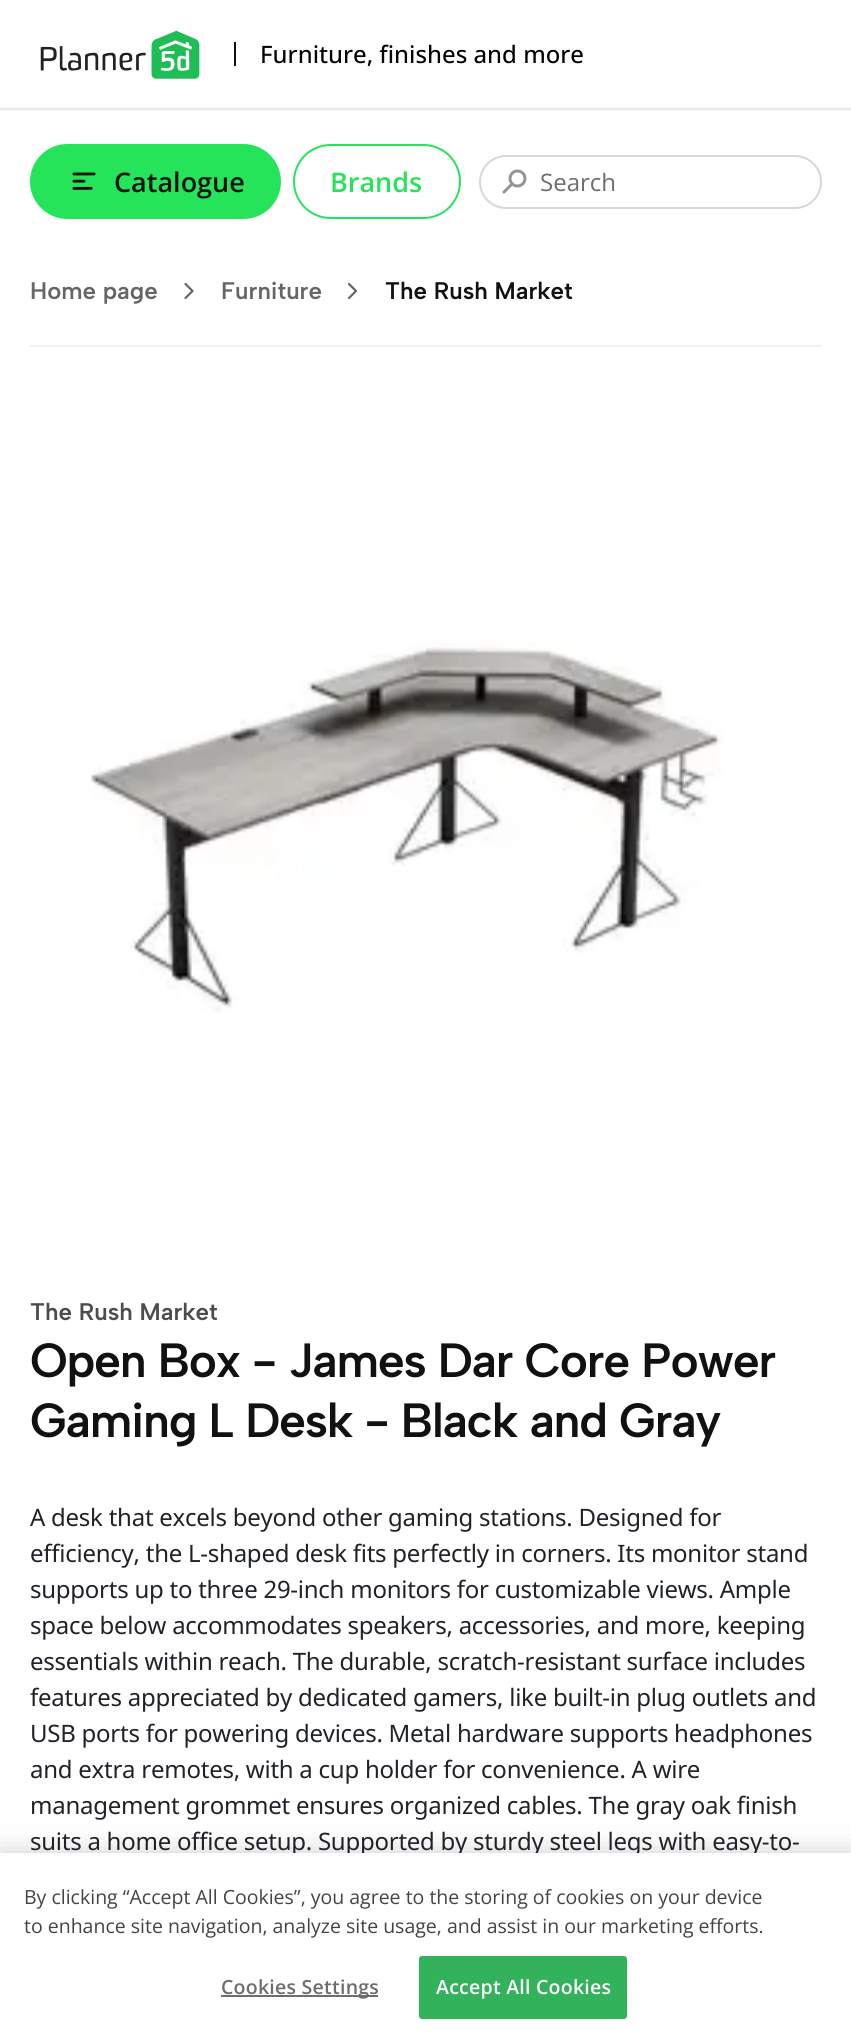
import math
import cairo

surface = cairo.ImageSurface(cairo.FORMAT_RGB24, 851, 2043)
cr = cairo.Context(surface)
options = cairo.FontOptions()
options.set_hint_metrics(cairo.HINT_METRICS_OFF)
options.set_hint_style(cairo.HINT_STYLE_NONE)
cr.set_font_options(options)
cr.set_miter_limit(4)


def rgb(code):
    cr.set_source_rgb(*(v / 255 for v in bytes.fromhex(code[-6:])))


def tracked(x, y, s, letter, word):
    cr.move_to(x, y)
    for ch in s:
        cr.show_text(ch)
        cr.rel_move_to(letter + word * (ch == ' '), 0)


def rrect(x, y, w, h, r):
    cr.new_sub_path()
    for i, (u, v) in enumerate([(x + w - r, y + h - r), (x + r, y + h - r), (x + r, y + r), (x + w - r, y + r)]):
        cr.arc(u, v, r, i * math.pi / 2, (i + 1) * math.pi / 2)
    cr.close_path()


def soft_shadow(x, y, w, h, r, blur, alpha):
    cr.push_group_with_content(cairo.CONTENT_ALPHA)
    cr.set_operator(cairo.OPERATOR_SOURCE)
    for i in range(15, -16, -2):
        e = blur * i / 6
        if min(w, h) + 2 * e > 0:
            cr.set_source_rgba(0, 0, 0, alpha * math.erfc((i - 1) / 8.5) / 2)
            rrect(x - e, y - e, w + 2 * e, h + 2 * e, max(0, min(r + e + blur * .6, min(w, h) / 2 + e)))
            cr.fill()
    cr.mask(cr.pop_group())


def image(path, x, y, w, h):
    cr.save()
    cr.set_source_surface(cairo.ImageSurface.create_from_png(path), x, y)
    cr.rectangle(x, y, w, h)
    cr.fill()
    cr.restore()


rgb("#ffffff")
cr.paint()
cr.save()
cr.rectangle(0, 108, 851, 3)
cr.clip()
rgb("#000000")
soft_shadow(0, 2, 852, 108, 0, 1.5, 0.12)
cr.restore()
image("img/1.png", 40, 30, 160, 49)
rgb("#111111")
cr.rectangle(234, 42, 2, 24)
cr.fill()
rgb("#25e459")
rrect(30, 144, 251, 75, 37.5)
cr.fill()
image("img/2.png", 72, 172, 24, 18)
rrect(294, 145, 166, 73, 36.5)
cr.stroke()
rrect(480, 156, 341, 52, 26)
rgb("#d7d7d7")
cr.stroke()
image("img/3.png", 502, 169, 25, 25)
rgb("#f2f2f2")
cr.rectangle(30, 345, 792, 2)
cr.fill()
cr.new_path()
cr.move_to(185.5, 284)
cr.line_to(192.5, 291)
cr.line_to(185.5, 298)
rgb("#666666")
cr.set_line_width(2.2)
cr.set_line_cap(cairo.LINE_CAP_ROUND)
cr.set_line_join(cairo.LINE_JOIN_ROUND)
cr.stroke()
cr.new_path()
cr.move_to(349, 284)
cr.line_to(356, 291)
cr.line_to(349, 298)
cr.stroke()
image("img/4.png", 91, 643, 632, 370)
rgb("#000000")
soft_shadow(0, 1853, 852, 190, 0, 13.5, 0.2)
cr.select_font_face("Open Sans Medium")
cr.set_font_size(24)
rgb("#000000")
cr.move_to(260, 63)
cr.show_text("Furniture, finishes and more")
cr.select_font_face("Open Sans SemiBold")
cr.set_font_size(27)
rgb("#111111")
cr.move_to(114, 192)
cr.show_text("Catalogue")
rgb("#25e459")
cr.move_to(330, 192)
cr.show_text("Brands")
cr.select_font_face("Open Sans")
cr.set_font_size(24)
rgb("#6d6d6d")
cr.move_to(540, 191)
cr.show_text("Search")
cr.select_font_face("Albert Sans SemiBold")
rgb("#666666")
cr.move_to(30, 299)
cr.show_text("Home page")
cr.move_to(221, 299)
cr.show_text("Furniture")
rgb("#111111")
cr.move_to(385, 299)
cr.show_text("The Rush Market")
rgb("#4d4d4d")
cr.move_to(30, 1320)
cr.show_text("The Rush Market")
cr.set_font_size(48)
rgb("#111111")
tracked(30, 1377, "Open Box - James Dar Core Power", -1.2, 0)
tracked(30, 1437, "Gaming L Desk - Black and Gray", -1.2, 0)
cr.select_font_face("Noto Sans")
cr.set_font_size(24)
rgb("#1f2328")
for x, y, s in [
    (30, 1526, "A desk that excels beyond other gaming stations. Designed for"),
    (30, 1562, "efficiency, the L-shaped desk fits perfectly in corners. Its monitor stand"),
    (30, 1598, "supports up to three 29-inch monitors for customizable views. Ample"),
    (30, 1634, "space below accommodates speakers, accessories, and more, keeping"),
    (30, 1670, "essentials within reach. The durable, scratch-resistant surface includes"),
    (30, 1706, "features appreciated by dedicated gamers, like built-in plug outlets and"),
    (30, 1742, "USB ports for powering devices. Metal hardware supports headphones"),
    (30, 1778, "and extra remotes, with a cup holder for convenience. A wire"),
    (30, 1814, "management grommet ensures organized cables. The gray oak finish"),
    (30, 1850, "suits a home office setup. Supported by sturdy steel legs with easy-to-"),
]:
    tracked(x, y, s, -0.25, 0)
rgb("#ffffff")
cr.rectangle(0, 1853, 851, 190)
cr.fill()
cr.select_font_face("Open Sans")
cr.set_font_size(19.5)
rgb("#444444")
cr.move_to(24, 1904)
cr.show_text("By clicking “Accept All Cookies”, you agree to the storing of cookies on your device")
cr.move_to(24, 1933)
cr.show_text("to enhance site navigation, analyze site usage, and assist in our marketing efforts.")
rgb("#6d6d6d")
cr.rectangle(221, 1995, 157, 2)
cr.fill()
cr.select_font_face("Open Sans SemiBold")
tracked(221, 1994, "Cookies Settings", 0.25, 0)
rgb("#33b25c")
rrect(420, 1957, 206, 61, 2)
cr.fill_preserve()
cr.set_line_width(2)
cr.set_line_cap(cairo.LINE_CAP_BUTT)
cr.set_line_join(cairo.LINE_JOIN_MITER)
cr.stroke()
rgb("#ffffff")
tracked(436, 1994, "Accept All Cookies", 0.25, 0)
surface.write_to_png("page.png")
